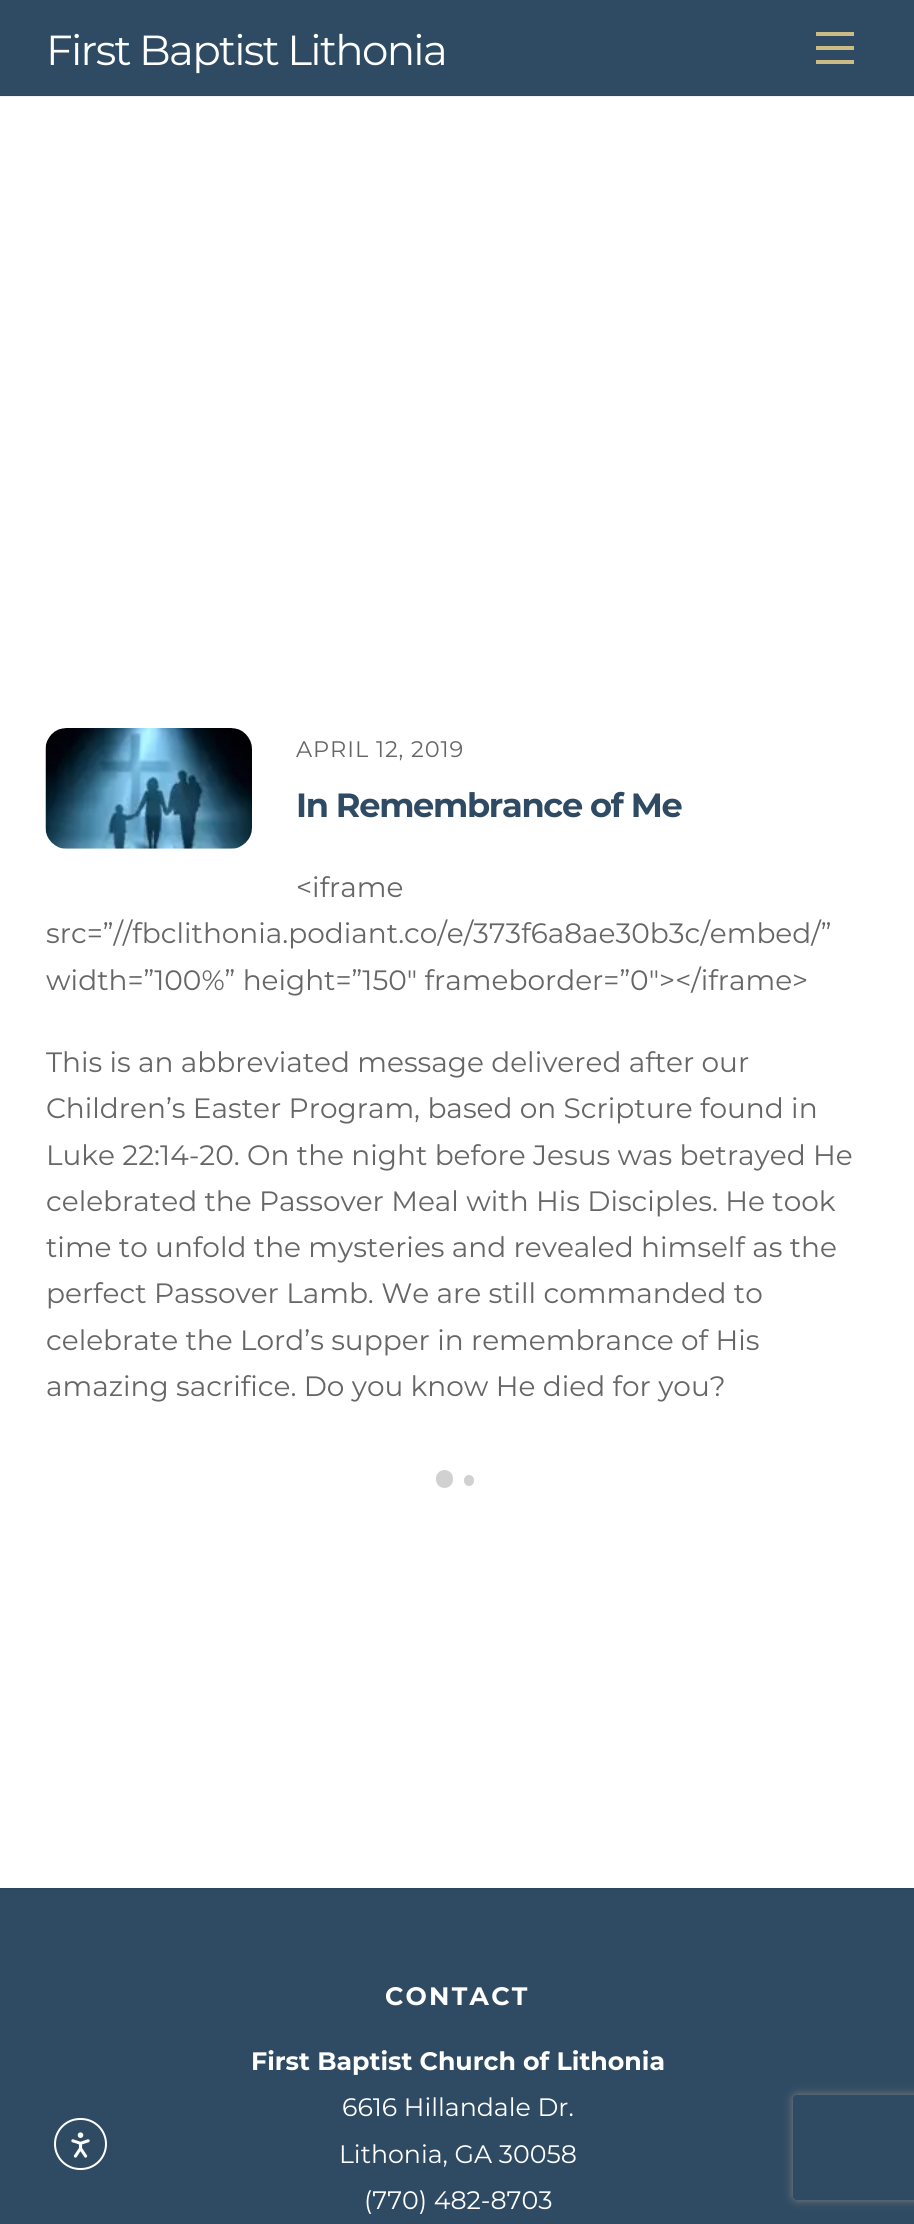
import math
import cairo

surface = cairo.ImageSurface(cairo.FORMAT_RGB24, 914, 2224)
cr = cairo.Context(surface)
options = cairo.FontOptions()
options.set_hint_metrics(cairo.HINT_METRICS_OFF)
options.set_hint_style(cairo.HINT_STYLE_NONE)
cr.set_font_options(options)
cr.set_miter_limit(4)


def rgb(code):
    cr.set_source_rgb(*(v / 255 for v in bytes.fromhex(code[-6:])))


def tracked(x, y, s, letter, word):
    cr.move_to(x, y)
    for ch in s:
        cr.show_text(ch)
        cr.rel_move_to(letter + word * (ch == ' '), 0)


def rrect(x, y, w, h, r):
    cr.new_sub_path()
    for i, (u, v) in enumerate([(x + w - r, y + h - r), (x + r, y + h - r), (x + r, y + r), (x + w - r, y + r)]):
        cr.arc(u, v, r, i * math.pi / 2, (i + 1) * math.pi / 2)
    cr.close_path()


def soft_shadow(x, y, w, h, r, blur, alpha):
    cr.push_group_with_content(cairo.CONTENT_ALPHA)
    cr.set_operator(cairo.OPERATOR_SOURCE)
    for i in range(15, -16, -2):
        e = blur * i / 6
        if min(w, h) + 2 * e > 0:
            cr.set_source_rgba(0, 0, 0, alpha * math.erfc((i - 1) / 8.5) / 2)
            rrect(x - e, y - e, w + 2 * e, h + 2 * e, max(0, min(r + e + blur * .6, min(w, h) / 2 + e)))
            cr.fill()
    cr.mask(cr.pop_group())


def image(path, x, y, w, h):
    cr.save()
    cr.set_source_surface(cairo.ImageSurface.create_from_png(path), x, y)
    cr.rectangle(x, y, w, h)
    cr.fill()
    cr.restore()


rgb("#ffffff")
cr.paint()
for x, y, w, h, color in [
    (0, 96, 914, 1, "#f2f2f2"),
    (0, 0, 914, 95, "#2f4b63"),
    (0, 95, 914, 1, "#2d475e"),
    (816, 60, 38, 4, "#cdbb86"),
    (816, 32, 38, 4, "#cdbb86"),
    (816, 46, 38, 4, "#cdbb86"),
]:
    rgb(color)
    cr.rectangle(x, y, w, h)
    cr.fill()
image("img/1.png", 45, 728, 207, 121)
rgb("#d1d1d1")
rrect(436, 1470, 17, 18, 8.5)
cr.fill()
rrect(464, 1475, 10, 11, 5)
cr.fill()
rgb("#2f4b63")
cr.rectangle(0, 1890, 914, 334)
cr.fill()
rgb("#2d475e")
cr.rectangle(0, 1888, 914, 2)
cr.fill()
rrect(55, 2119, 51, 50, 25)
rgb("#ffffff")
cr.stroke()
image("img/2.png", 71, 2132, 19, 26)
cr.save()
cr.set_fill_rule(cairo.FILL_RULE_EVEN_ODD)
cr.new_path()
cr.move_to(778, 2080)
cr.line_to(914, 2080)
cr.line_to(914, 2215)
cr.line_to(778, 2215)
cr.close_path()
cr.move_to(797, 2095)
cr.line_to(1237, 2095)
cr.curve_to(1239, 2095, 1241, 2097, 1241, 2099)
cr.line_to(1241, 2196)
cr.curve_to(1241, 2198, 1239, 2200, 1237, 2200)
cr.line_to(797, 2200)
cr.curve_to(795, 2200, 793, 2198, 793, 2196)
cr.line_to(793, 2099)
cr.curve_to(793, 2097, 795, 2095, 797, 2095)
cr.close_path()
cr.clip()
rgb("#808080")
soft_shadow(793, 2095, 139, 105, 4, 4.5, 1)
cr.restore()
cr.select_font_face("Montserrat")
cr.set_font_size(42)
tracked(46, 65, "First Baptist Lithonia", -1.7, 0)
cr.set_font_size(22.5)
rgb("#666666")
tracked(296, 757, "APRIL 12, 2019", 0.9, 0)
cr.select_font_face("Montserrat", cairo.FONT_SLANT_NORMAL, cairo.FONT_WEIGHT_BOLD)
cr.set_font_size(33.6)
rgb("#2f4b63")
tracked(296, 817, "In Remembrance of Me", -1.3, 0)
cr.select_font_face("Montserrat")
cr.set_font_size(28)
rgb("#666666")
for x, y, s in [
    (296, 897, "<iframe"),
    (46, 943, "src=”//fbclithonia.podiant.co/e/373f6a8ae30b3c/embed/”"),
    (46, 990, "width=”100%” height=”150″ frameborder=”0″></iframe>"),
    (46, 1072, "This is an abbreviated message delivered after our"),
    (46, 1118, "Children’s Easter Program, based on Scripture found in"),
    (46, 1165, "Luke 22:14-20. On the night before Jesus was betrayed He"),
    (46, 1211, "celebrated the Passover Meal with His Disciples. He took"),
    (46, 1257, "time to unfold the mysteries and revealed himself as the"),
    (46, 1303, "perfect Passover Lamb. We are still commanded to"),
    (46, 1350, "celebrate the Lord’s supper in remembrance of His"),
    (46, 1396, "amazing sacrifice. Do you know He died for you?"),
]:
    cr.move_to(x, y)
    cr.show_text(s)
cr.select_font_face("Montserrat", cairo.FONT_SLANT_NORMAL, cairo.FONT_WEIGHT_BOLD)
cr.set_font_size(25.25)
rgb("#ffffff")
tracked(385, 2005, "CONTACT", 2.25, 0)
cr.move_to(251, 2070)
cr.show_text("First Baptist Church of Lithonia")
cr.select_font_face("Montserrat")
for x, y, s in [
    (342, 2116, "6616 Hillandale Dr."),
    (339, 2163, "Lithonia, GA 30058"),
    (364, 2209, "(770) 482-8703"),
]:
    cr.move_to(x, y)
    cr.show_text(s)
surface.write_to_png("page.png")
